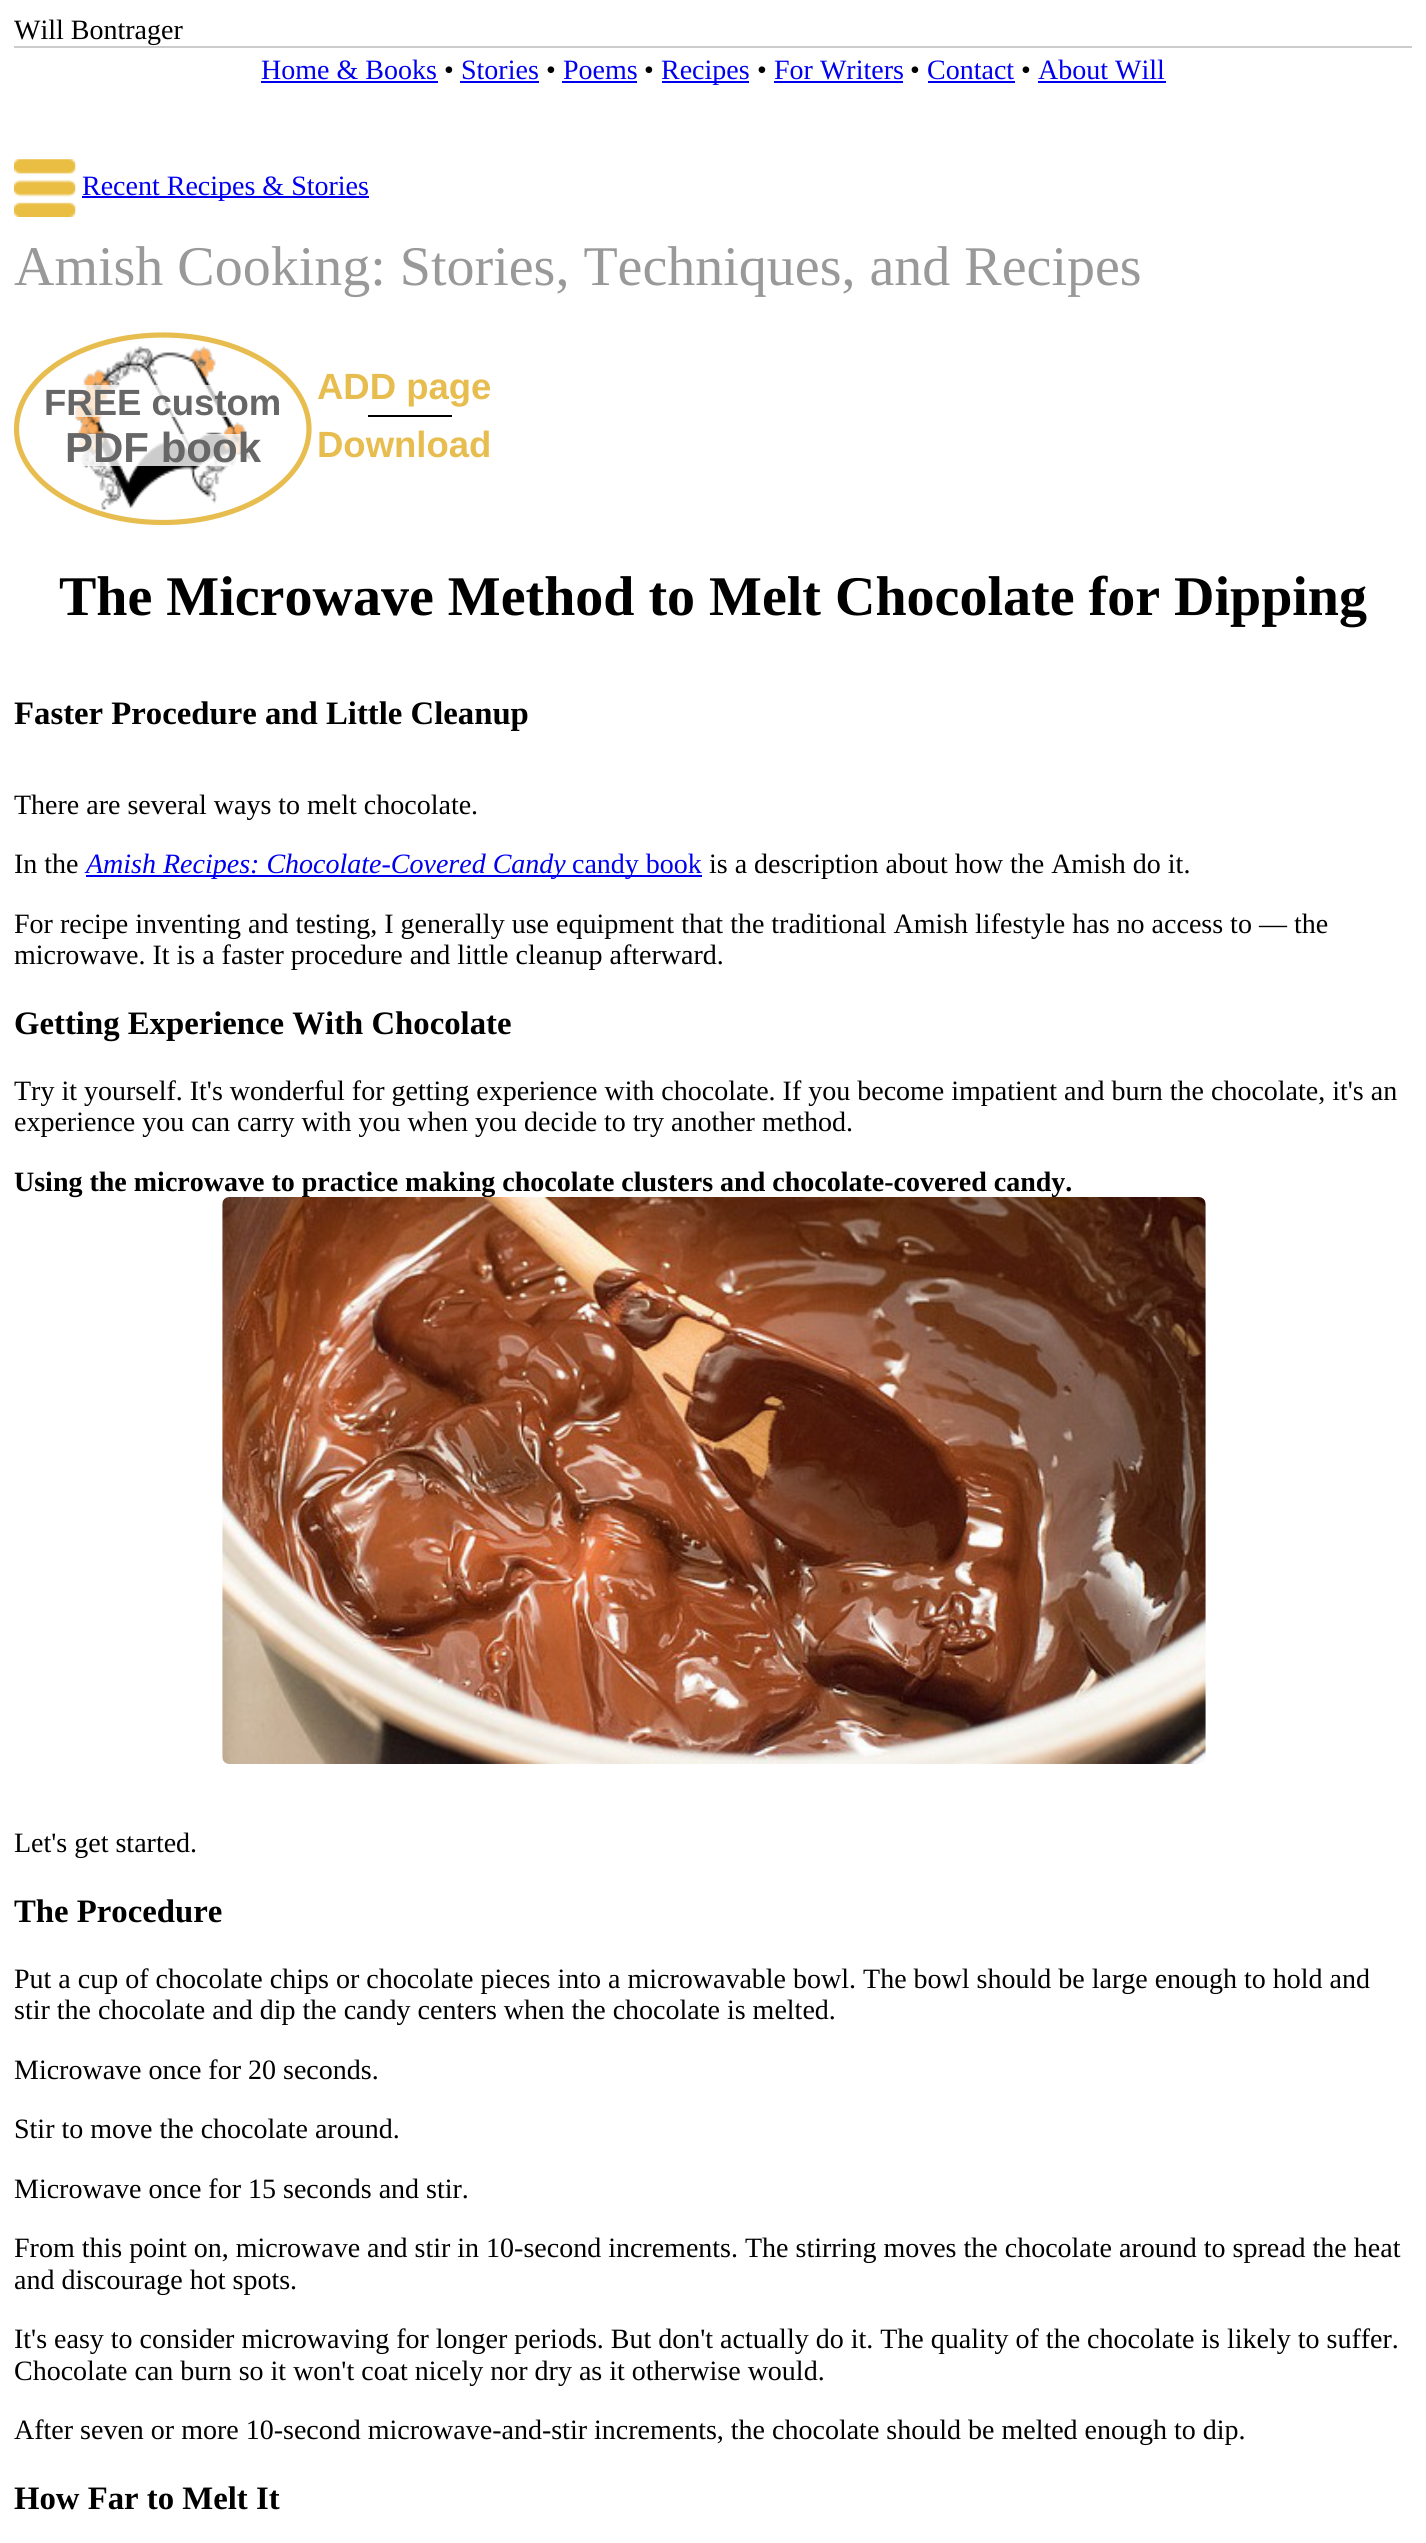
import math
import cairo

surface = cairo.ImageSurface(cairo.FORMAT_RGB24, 1426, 2543)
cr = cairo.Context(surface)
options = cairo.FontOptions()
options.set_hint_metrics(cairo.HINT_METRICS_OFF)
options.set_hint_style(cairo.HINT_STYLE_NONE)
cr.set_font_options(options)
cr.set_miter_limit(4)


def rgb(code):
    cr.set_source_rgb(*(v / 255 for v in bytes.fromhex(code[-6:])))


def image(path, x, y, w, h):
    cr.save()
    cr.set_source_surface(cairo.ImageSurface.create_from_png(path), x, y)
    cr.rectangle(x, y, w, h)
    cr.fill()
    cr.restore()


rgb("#ffffff")
cr.paint()
for x, y, w, h, color in [
    (14, 46, 1398, 2, "#cccccc"),
    (261, 81, 177, 2, "#0000ee"),
    (460, 81, 79, 2, "#0000ee"),
    (562, 81, 75, 2, "#0000ee"),
    (662, 81, 87, 2, "#0000ee"),
    (774, 81, 129, 2, "#0000ee"),
    (928, 81, 87, 2, "#0000ee"),
    (1038, 81, 128, 2, "#0000ee"),
]:
    rgb(color)
    cr.rectangle(x, y, w, h)
    cr.fill()
image("img/1.png", 14, 159, 62, 58)
cr.rectangle(82, 196, 287, 2)
cr.fill()
cr.new_path()
cr.move_to(163, 335)
cr.curve_to(243.5, 335, 309, 377, 309, 429)
cr.curve_to(309, 480.5, 243.5, 522.5, 163, 522.5)
cr.curve_to(82, 522.5, 16.5, 480.5, 16.5, 429)
cr.curve_to(16.5, 377, 82, 335, 163, 335)
cr.close_path()
rgb("#e8bd4f")
cr.set_line_width(5.2)
cr.stroke()
image("img/2.png", 75, 346, 176, 164)
rgb("#000000")
cr.rectangle(368, 415, 84, 2)
cr.fill()
cr.set_source_rgba(1, 1, 1, 0.7)
cr.rectangle(83, 385, 131, 4)
cr.fill()
cr.rectangle(75, 389, 154, 28)
cr.fill()
cr.set_source_rgba(1, 1, 1, 0.8)
cr.rectangle(76, 434, 175, 28)
cr.fill()
cr.rectangle(82, 462, 155, 4)
cr.fill()
rgb("#0000ee")
cr.rectangle(86, 875, 479, 2)
cr.rectangle(565, 875, 137, 2)
cr.fill()
cr.select_font_face("Liberation Serif")
cr.set_font_size(28)
rgb("#000000")
cr.move_to(14, 39)
cr.show_text("Will Bontrager")
rgb("#0000ee")
cr.move_to(261, 79)
cr.show_text("Home & Books")
rgb("#000000")
cr.move_to(444, 79)
cr.show_text("•")
rgb("#0000ee")
cr.move_to(461, 79)
cr.show_text("Stories")
rgb("#000000")
cr.move_to(546, 79)
cr.show_text("•")
rgb("#0000ee")
cr.move_to(563, 79)
cr.show_text("Poems")
rgb("#000000")
cr.move_to(644, 79)
cr.show_text("•")
rgb("#0000ee")
cr.move_to(661, 79)
cr.show_text("Recipes")
rgb("#000000")
cr.move_to(757, 79)
cr.show_text("•")
rgb("#0000ee")
cr.move_to(774, 79)
cr.show_text("For Writers")
rgb("#000000")
cr.move_to(910, 79)
cr.show_text("•")
rgb("#0000ee")
cr.move_to(927, 79)
cr.show_text("Contact")
rgb("#000000")
cr.move_to(1021, 79)
cr.show_text("•")
rgb("#0000ee")
cr.move_to(1038, 79)
cr.show_text("About Will")
cr.move_to(82, 195)
cr.show_text("Recent Recipes & Stories")
cr.set_font_size(56)
rgb("#999999")
cr.move_to(14, 285)
cr.show_text("Amish Cooking: Stories, Techniques, and Recipes")
cr.select_font_face("Liberation Sans", cairo.FONT_SLANT_NORMAL, cairo.FONT_WEIGHT_BOLD)
cr.set_font_size(36.5)
rgb("#e8bd4f")
cr.move_to(317, 399)
cr.show_text("ADD page")
cr.move_to(317, 457)
cr.show_text("Download")
rgb("#666666")
cr.move_to(44, 415)
cr.show_text("FREE custom")
cr.set_font_size(42)
cr.move_to(65, 462)
cr.show_text("PDF book")
cr.select_font_face("Liberation Serif", cairo.FONT_SLANT_NORMAL, cairo.FONT_WEIGHT_BOLD)
cr.set_font_size(56)
rgb("#000000")
cr.move_to(59, 615)
cr.show_text("The Microwave Method to Melt Chocolate for Dipping")
cr.set_font_size(32.75)
cr.move_to(14, 724)
cr.show_text("Faster Procedure and Little Cleanup")
cr.select_font_face("Liberation Serif")
cr.set_font_size(28)
cr.move_to(14, 814)
cr.show_text("There are several ways to melt chocolate.")
cr.move_to(14, 873)
cr.show_text("In the")
cr.select_font_face("Liberation Serif", cairo.FONT_SLANT_ITALIC)
rgb("#0000ee")
cr.move_to(86, 873)
cr.show_text("Amish Recipes: Chocolate-Covered Candy")
cr.select_font_face("Liberation Serif")
cr.move_to(572, 873)
cr.show_text("candy book")
rgb("#000000")
for x, y, s in [
    (709, 873, "is a description about how the Amish do it."),
    (14, 933, "For recipe inventing and testing, I generally use equipment that the traditional Amish lifestyle has no access to — the"),
    (14, 964, "microwave. It is a faster procedure and little cleanup afterward."),
]:
    cr.move_to(x, y)
    cr.show_text(s)
cr.select_font_face("Liberation Serif", cairo.FONT_SLANT_NORMAL, cairo.FONT_WEIGHT_BOLD)
cr.set_font_size(32.75)
cr.move_to(14, 1034)
cr.show_text("Getting Experience With Chocolate")
cr.select_font_face("Liberation Serif")
cr.set_font_size(28)
cr.move_to(14, 1100)
cr.show_text("Try it yourself. It's wonderful for getting experience with chocolate. If you become impatient and burn the chocolate, it's an")
cr.move_to(14, 1131)
cr.show_text("experience you can carry with you when you decide to try another method.")
cr.select_font_face("Liberation Serif", cairo.FONT_SLANT_NORMAL, cairo.FONT_WEIGHT_BOLD)
cr.move_to(14, 1191)
cr.show_text("Using the microwave to practice making chocolate clusters and chocolate-covered candy.")
image("img/3.png", 222, 1197, 984, 567)
cr.select_font_face("Liberation Serif")
cr.move_to(14, 1852)
cr.show_text("Let's get started.")
cr.select_font_face("Liberation Serif", cairo.FONT_SLANT_NORMAL, cairo.FONT_WEIGHT_BOLD)
cr.set_font_size(32.75)
cr.move_to(14, 1922)
cr.show_text("The Procedure")
cr.select_font_face("Liberation Serif")
cr.set_font_size(28)
for x, y, s in [
    (14, 1988, "Put a cup of chocolate chips or chocolate pieces into a microwavable bowl. The bowl should be large enough to hold and"),
    (14, 2019, "stir the chocolate and dip the candy centers when the chocolate is melted."),
    (14, 2079, "Microwave once for 20 seconds."),
    (14, 2138, "Stir to move the chocolate around."),
    (14, 2198, "Microwave once for 15 seconds and stir."),
    (14, 2257, "From this point on, microwave and stir in 10-second increments. The stirring moves the chocolate around to spread the heat"),
    (14, 2289, "and discourage hot spots."),
    (14, 2348, "It's easy to consider microwaving for longer periods. But don't actually do it. The quality of the chocolate is likely to suffer."),
    (14, 2380, "Chocolate can burn so it won't coat nicely nor dry as it otherwise would."),
    (14, 2439, "After seven or more 10-second microwave-and-stir increments, the chocolate should be melted enough to dip."),
]:
    cr.move_to(x, y)
    cr.show_text(s)
cr.select_font_face("Liberation Serif", cairo.FONT_SLANT_NORMAL, cairo.FONT_WEIGHT_BOLD)
cr.set_font_size(32.75)
cr.move_to(14, 2509)
cr.show_text("How Far to Melt It")
surface.write_to_png("page.png")
